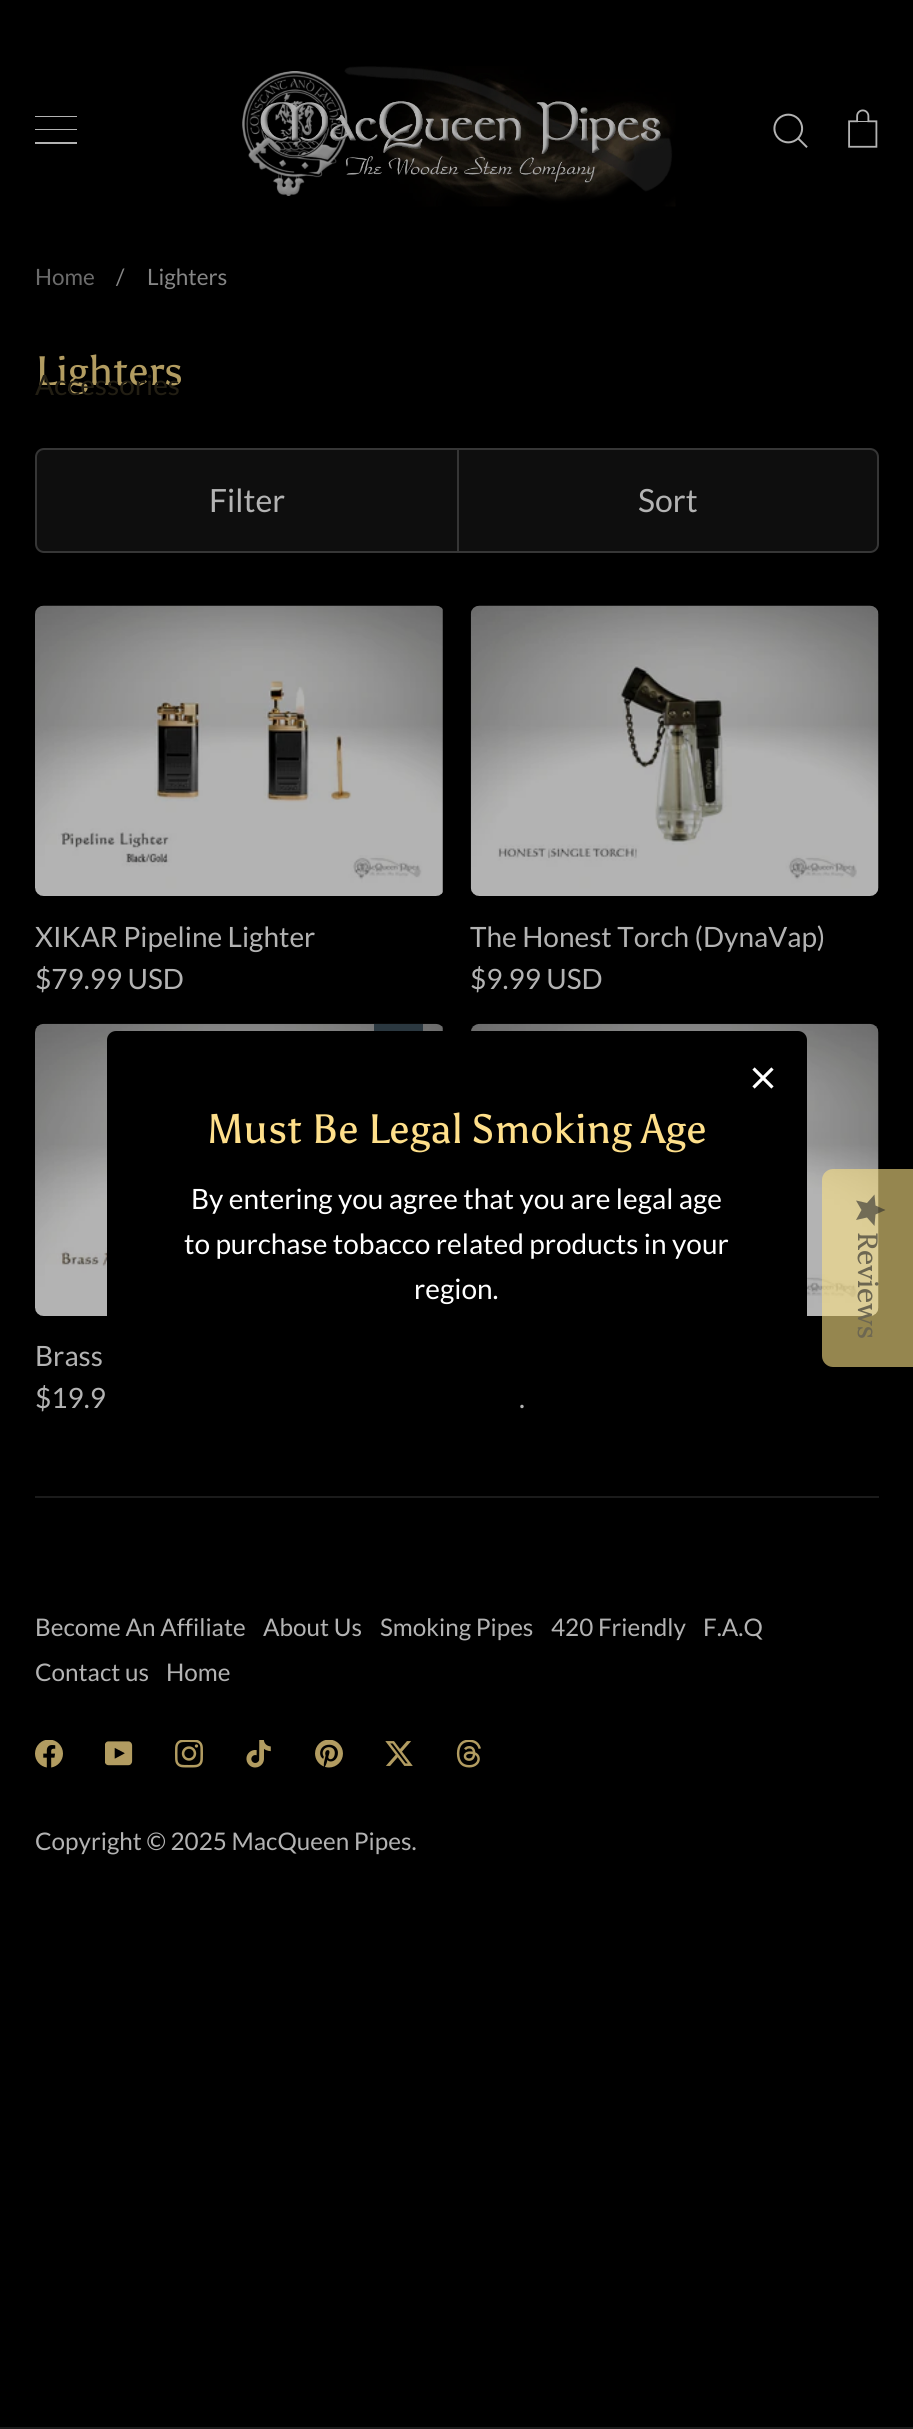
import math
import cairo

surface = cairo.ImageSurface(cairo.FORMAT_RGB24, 913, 2429)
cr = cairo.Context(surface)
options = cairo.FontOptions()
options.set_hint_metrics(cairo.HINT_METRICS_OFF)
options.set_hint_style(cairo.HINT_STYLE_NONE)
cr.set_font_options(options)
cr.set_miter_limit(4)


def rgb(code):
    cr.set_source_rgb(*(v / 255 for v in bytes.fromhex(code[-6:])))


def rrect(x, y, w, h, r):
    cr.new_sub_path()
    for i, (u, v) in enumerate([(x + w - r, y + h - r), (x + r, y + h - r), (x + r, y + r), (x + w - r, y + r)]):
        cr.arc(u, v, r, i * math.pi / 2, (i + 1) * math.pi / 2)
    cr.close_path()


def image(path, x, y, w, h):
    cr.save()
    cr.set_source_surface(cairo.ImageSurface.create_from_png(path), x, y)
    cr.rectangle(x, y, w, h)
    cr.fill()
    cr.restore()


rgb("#000000")
cr.paint()
rgb("#0e0e0e")
cr.new_path()
cr.move_to(44, 449)
cr.line_to(458, 449)
cr.line_to(458, 552)
cr.line_to(44, 552)
cr.curve_to(39.5, 552, 36, 548.5, 36, 544)
cr.line_to(36, 457)
cr.curve_to(36, 452.5, 39.5, 449, 44, 449)
cr.close_path()
cr.fill_preserve()
rgb("#363636")
cr.stroke()
rgb("#0e0e0e")
cr.new_path()
cr.move_to(458, 449)
cr.line_to(870, 449)
cr.curve_to(874.5, 449, 878, 452.5, 878, 457)
cr.line_to(878, 544)
cr.curve_to(878, 548.5, 874.5, 552, 870, 552)
cr.line_to(458, 552)
cr.close_path()
cr.fill_preserve()
rgb("#363636")
cr.stroke()
image("img/1.png", 35, 605, 408, 291)
image("img/2.png", 470, 605, 409, 291)
image("img/3.png", 35, 1023, 408, 293)
rgb("#2b3840")
cr.rectangle(374, 1024, 49, 7)
cr.fill()
image("img/4.png", 471, 1023, 408, 293)
for x, y, w, h, color in [
    (35, 116, 42, 1, "#b3b3b3"),
    (35, 129, 42, 1, "#b3b3b3"),
    (35, 142, 42, 2, "#b3b3b3"),
]:
    rgb(color)
    cr.rectangle(x, y, w, h)
    cr.fill()
image("img/5.png", 242, 66, 434, 141)
image("img/6.png", 848, 109, 30, 39)
image("img/7.png", 773, 113, 35, 35)
rgb("#1b1b1b")
cr.rectangle(0, 2427, 913, 2)
cr.fill()
rgb("#000000")
rrect(107, 1031, 700, 367, 9)
cr.fill()
cr.new_path()
cr.move_to(772.5, 1068.5)
cr.line_to(753.5, 1087.5)
cr.move_to(753.5, 1068.5)
cr.line_to(772.5, 1087.5)
rgb("#ffffff")
cr.set_line_width(3.2)
cr.stroke()
cr.set_source_rgba(0.976, 0.875, 0.518, 0.6)
cr.new_path()
cr.move_to(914, 1169)
cr.line_to(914, 1367)
cr.line_to(833, 1367)
cr.curve_to(827, 1367, 822, 1362, 822, 1356)
cr.line_to(822, 1180)
cr.curve_to(822, 1174, 827, 1169, 833, 1169)
cr.close_path()
cr.fill()
gradient = cairo.LinearGradient(886, 1194, 886, 1226)
gradient.add_color_stop_rgba(1, 0.173, 0.173, 0.173, 0.6)
gradient.add_color_stop_rgba(1, 0.918, 0.918, 0.918, 0.6)
cr.set_source(gradient)
cr.new_path()
cr.move_to(861.5, 1210)
cr.line_to(856, 1220)
cr.line_to(867, 1217.5)
cr.line_to(874.5, 1226)
cr.line_to(875.5, 1214.5)
cr.line_to(885.5, 1210)
cr.line_to(875.5, 1205.5)
cr.line_to(874.5, 1194.5)
cr.line_to(867, 1203)
cr.line_to(856, 1200.5)
cr.close_path()
cr.fill()
rgb("#1b1b1b")
cr.rectangle(35, 1496, 844, 2)
cr.fill()
image("img/8.png", 35, 1740, 28, 28)
image("img/9.png", 105, 1741, 28, 25)
image("img/10.png", 175, 1740, 28, 28)
image("img/11.png", 246, 1740, 25, 28)
image("img/12.png", 315, 1740, 28, 28)
image("img/13.png", 385, 1741, 28, 25)
image("img/14.png", 456, 1740, 25, 28)
cr.select_font_face("Lato")
cr.set_font_size(22.5)
rgb("#6b6b6b")
cr.move_to(35, 285)
cr.show_text("Home")
rgb("#868686")
cr.move_to(116, 285)
cr.show_text("/")
cr.move_to(147, 285)
cr.show_text("Lighters")
cr.select_font_face("Asul")
cr.set_font_size(41)
rgb("#b29c61")
cr.move_to(35, 385)
cr.show_text("Lighters")
cr.select_font_face("Lato")
cr.set_font_size(32)
rgb("#b3b3b3")
cr.move_to(209, 512)
cr.show_text("Filter")
cr.move_to(638, 512)
cr.show_text("Sort")
cr.set_font_size(28)
for x, y, s in [
    (35, 947, "XIKAR Pipeline Lighter"),
    (35, 989, "$79.99 USD"),
    (470, 947, "The Honest Torch (DynaVap)"),
    (470, 989, "$9.99 USD"),
    (35, 1366, "Brass"),
    (35, 1408, "$19.9"),
    (519, 1408, "."),
]:
    cr.move_to(x, y)
    cr.show_text(s)
rgb("#221e13")
cr.move_to(35, 395)
cr.show_text("Accessories")
cr.select_font_face("Asul")
cr.set_font_size(41)
rgb("#fedf8a")
cr.move_to(207, 1143)
cr.show_text("Must Be Legal Smoking Age")
cr.select_font_face("Lato")
cr.set_font_size(28)
rgb("#ffffff")
for x, y, s in [
    (191, 1209, "By entering you agree that you are legal age"),
    (184, 1254, "to purchase tobacco related products in your"),
    (414, 1299, "region."),
]:
    cr.move_to(x, y)
    cr.show_text(s)
cr.select_font_face("Lora Medium")
rgb("#6d6751")
cr.save()
cr.translate(858, 1232)
cr.rotate(90 * math.pi / 180)
cr.move_to(0, 0)
cr.show_text("Reviews")
cr.restore()
cr.select_font_face("Lato")
cr.set_font_size(24.25)
rgb("#b3b3b3")
for x, y, s in [
    (35, 1636, "Become An Affiliate"),
    (263, 1636, "About Us"),
    (380, 1636, "Smoking Pipes"),
    (551, 1636, "420 Friendly"),
    (703, 1636, "F.A.Q"),
    (35, 1681, "Contact us"),
    (166, 1681, "Home"),
    (35, 1850, "Copyright © 2025 MacQueen Pipes."),
]:
    cr.move_to(x, y)
    cr.show_text(s)
surface.write_to_png("page.png")
